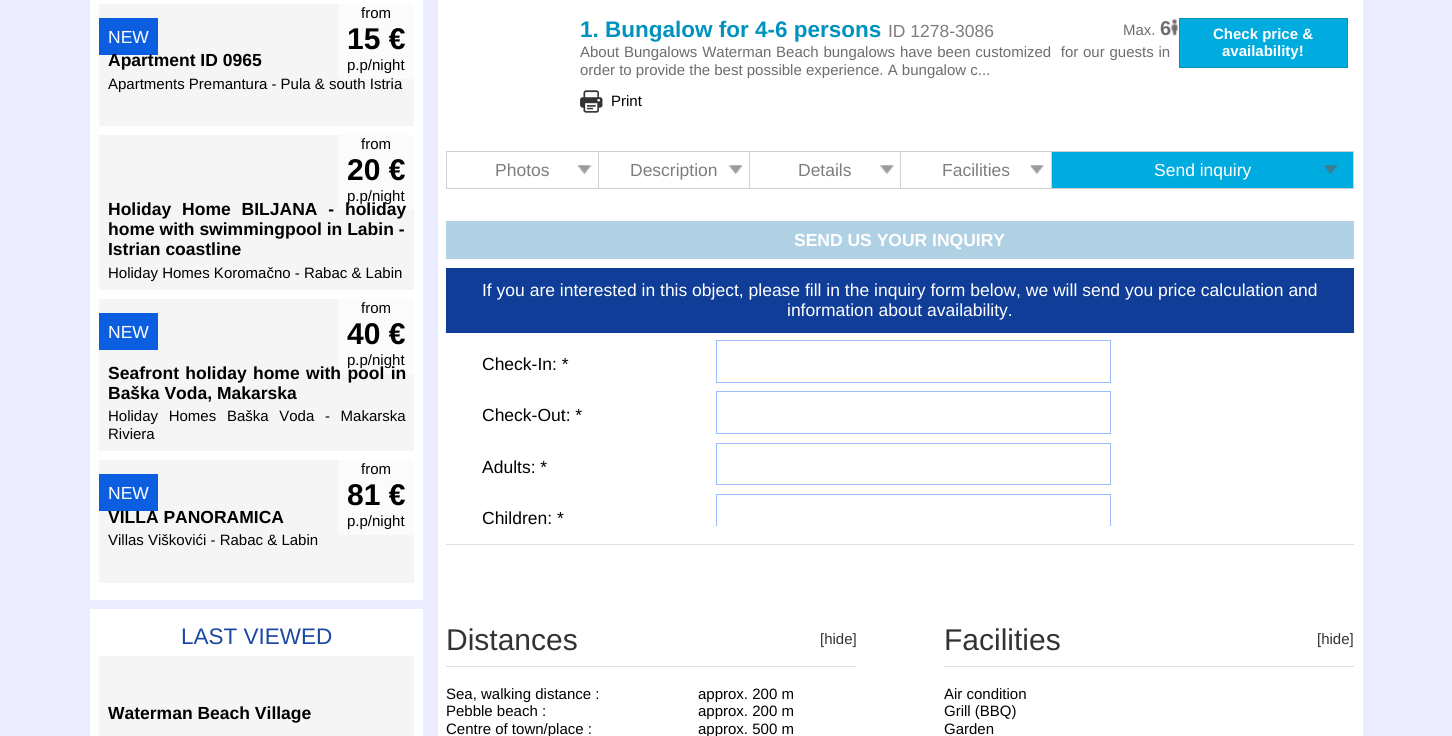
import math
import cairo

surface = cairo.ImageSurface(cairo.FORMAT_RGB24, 1452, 736)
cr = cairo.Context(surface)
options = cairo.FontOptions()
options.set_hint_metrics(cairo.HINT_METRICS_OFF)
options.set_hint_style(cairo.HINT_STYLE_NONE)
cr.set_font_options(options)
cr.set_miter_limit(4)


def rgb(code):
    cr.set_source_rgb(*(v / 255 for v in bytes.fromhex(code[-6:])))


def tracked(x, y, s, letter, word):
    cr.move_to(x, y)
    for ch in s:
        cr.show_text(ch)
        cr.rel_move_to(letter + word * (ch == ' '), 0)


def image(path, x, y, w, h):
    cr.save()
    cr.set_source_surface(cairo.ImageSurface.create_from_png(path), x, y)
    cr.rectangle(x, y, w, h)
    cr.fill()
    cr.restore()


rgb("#ebecff")
cr.paint()
for x, y, w, h, color in [
    (90, 0, 333, 600, "#ffffff"),
    (99, 4, 315, 122, "#f5f5f5"),
    (99, 18, 59, 37, "#0c5ee0"),
    (338, 4, 76, 75, "#fbfbfb"),
    (99, 135, 315, 155, "#f5f5f5"),
    (338, 135, 76, 75, "#fbfbfb"),
    (99, 299, 315, 152, "#f5f5f5"),
    (99, 313, 59, 37, "#0c5ee0"),
    (338, 299, 76, 75, "#fbfbfb"),
    (99, 460, 315, 123, "#f5f5f5"),
    (99, 474, 59, 37, "#0c5ee0"),
    (338, 460, 76, 75, "#fbfbfb"),
    (90, 609, 333, 127, "#ffffff"),
    (99, 656, 315, 80, "#f5f5f5"),
    (438, 0, 925, 736, "#ffffff"),
    (446, 544, 908, 1, "#dfdfe3"),
]:
    rgb(color)
    cr.rectangle(x, y, w, h)
    cr.fill()
image("img/1.png", 1171, 19, 7, 17)
image("img/2.png", 580, 90, 23, 23)
rgb("#00abdf")
cr.rectangle(1179.5, 18.5, 168, 49)
cr.fill_preserve()
rgb("#0097c5")
cr.set_line_width(1)
cr.stroke()
image("img/3.png", 577, 165, 15, 9)
for x, y, w, h, color in [
    (446, 151, 605, 1, "#d1d1d1"),
    (446, 188, 605, 1, "#d1d1d1"),
    (446, 151, 1, 38, "#d1d1d1"),
]:
    rgb(color)
    cr.rectangle(x, y, w, h)
    cr.fill()
image("img/4.png", 728, 165, 15, 9)
cr.rectangle(598, 151, 1, 38)
cr.fill()
image("img/5.png", 880, 165, 14, 9)
cr.rectangle(749, 151, 1, 38)
cr.fill()
image("img/5.png", 1030, 165, 14, 9)
cr.rectangle(900, 151, 1, 38)
cr.fill()
rgb("#00abdf")
cr.rectangle(1052, 152, 301, 36)
cr.fill()
image("img/6.png", 1323, 165, 15, 9)
cr.rectangle(1051.5, 151.5, 302, 37)
rgb("#d1d1d1")
cr.stroke()
rgb("#b0d1e4")
cr.rectangle(446, 221, 908, 38)
cr.fill()
rgb("#0f3d97")
cr.rectangle(446, 268, 908, 65)
cr.fill()
cr.rectangle(716.5, 340.5, 394, 42)
rgb("#9bbdfe")
cr.stroke()
cr.rectangle(716.5, 391.5, 394, 42)
cr.stroke()
cr.rectangle(716.5, 443.5, 394, 41)
cr.stroke()
cr.save()
cr.rectangle(446, 210, 908, 316)
cr.clip()
cr.rectangle(716.5, 494.5, 394, 41)
cr.stroke()
cr.restore()
rgb("#dfdfe3")
cr.rectangle(446, 666, 410, 1)
cr.fill()
cr.rectangle(944, 666, 410, 1)
cr.fill()
cr.select_font_face("Liberation Sans")
cr.set_font_size(17.5)
rgb("#ffffff")
cr.move_to(108, 43)
cr.show_text("NEW")
cr.set_font_size(15)
rgb("#000000")
cr.move_to(361, 18)
cr.show_text("from")
cr.select_font_face("Liberation Sans", cairo.FONT_SLANT_NORMAL, cairo.FONT_WEIGHT_BOLD)
cr.set_font_size(30)
cr.move_to(347, 49)
cr.show_text("15 €")
cr.select_font_face("Liberation Sans")
cr.set_font_size(15)
cr.move_to(347, 70)
cr.show_text("p.p/night")
cr.select_font_face("Liberation Sans", cairo.FONT_SLANT_NORMAL, cairo.FONT_WEIGHT_BOLD)
cr.set_font_size(17.5)
cr.move_to(108, 66)
cr.show_text("Apartment ID 0965")
cr.select_font_face("Liberation Sans")
cr.set_font_size(15)
cr.move_to(108, 89)
cr.show_text("Apartments Premantura - Pula & south Istria")
cr.move_to(361, 149)
cr.show_text("from")
cr.select_font_face("Liberation Sans", cairo.FONT_SLANT_NORMAL, cairo.FONT_WEIGHT_BOLD)
cr.set_font_size(30)
cr.move_to(347, 180)
cr.show_text("20 €")
cr.select_font_face("Liberation Sans")
cr.set_font_size(15)
cr.move_to(347, 201)
cr.show_text("p.p/night")
cr.select_font_face("Liberation Sans", cairo.FONT_SLANT_NORMAL, cairo.FONT_WEIGHT_BOLD)
cr.set_font_size(17.5)
tracked(108, 215, "Holiday Home BILJANA - holiday", 0, 6)
cr.move_to(108, 235)
cr.show_text("home with swimmingpool in Labin -")
cr.move_to(108, 255)
cr.show_text("Istrian coastline")
cr.select_font_face("Liberation Sans")
cr.set_font_size(15)
cr.move_to(108, 278)
cr.show_text("Holiday Homes Koromačno - Rabac & Labin")
cr.set_font_size(17.5)
rgb("#ffffff")
cr.move_to(108, 338)
cr.show_text("NEW")
cr.set_font_size(15)
rgb("#000000")
cr.move_to(361, 313)
cr.show_text("from")
cr.select_font_face("Liberation Sans", cairo.FONT_SLANT_NORMAL, cairo.FONT_WEIGHT_BOLD)
cr.set_font_size(30)
cr.move_to(347, 344)
cr.show_text("40 €")
cr.select_font_face("Liberation Sans")
cr.set_font_size(15)
cr.move_to(347, 365)
cr.show_text("p.p/night")
cr.select_font_face("Liberation Sans", cairo.FONT_SLANT_NORMAL, cairo.FONT_WEIGHT_BOLD)
cr.set_font_size(17.5)
tracked(108, 379, "Seafront holiday home with pool in", 0, 1.5)
cr.move_to(108, 399)
cr.show_text("Baška Voda, Makarska")
cr.select_font_face("Liberation Sans")
cr.set_font_size(15)
tracked(108, 421, "Holiday Homes Baška Voda - Makarska", 0, 6.5)
cr.move_to(108, 439)
cr.show_text("Riviera")
cr.set_font_size(17.5)
rgb("#ffffff")
cr.move_to(108, 499)
cr.show_text("NEW")
cr.set_font_size(15)
rgb("#000000")
cr.move_to(361, 474)
cr.show_text("from")
cr.select_font_face("Liberation Sans", cairo.FONT_SLANT_NORMAL, cairo.FONT_WEIGHT_BOLD)
cr.set_font_size(30)
cr.move_to(347, 505)
cr.show_text("81 €")
cr.select_font_face("Liberation Sans")
cr.set_font_size(15)
cr.move_to(347, 526)
cr.show_text("p.p/night")
cr.select_font_face("Liberation Sans", cairo.FONT_SLANT_NORMAL, cairo.FONT_WEIGHT_BOLD)
cr.set_font_size(17.5)
cr.move_to(108, 523)
cr.show_text("VILLA PANORAMICA")
cr.select_font_face("Liberation Sans")
cr.set_font_size(15)
cr.move_to(108, 545)
cr.show_text("Villas Viškovići - Rabac & Labin")
cr.set_font_size(22.5)
rgb("#1a48a3")
cr.move_to(181, 644)
cr.show_text("LAST VIEWED")
cr.select_font_face("Liberation Sans", cairo.FONT_SLANT_NORMAL, cairo.FONT_WEIGHT_BOLD)
cr.set_font_size(17.5)
rgb("#000000")
cr.move_to(108, 719)
cr.show_text("Waterman Beach Village")
cr.set_font_size(22.5)
rgb("#0092be")
cr.move_to(580, 37)
cr.show_text("1. Bungalow for 4-6 persons")
cr.select_font_face("Liberation Sans")
cr.set_font_size(17.5)
rgb("#7d7d7d")
cr.move_to(888, 37)
cr.show_text("ID 1278-3086")
cr.set_font_size(15)
rgb("#6f6c6d")
cr.move_to(1123, 35)
cr.show_text("Max.")
cr.select_font_face("Liberation Sans", cairo.FONT_SLANT_NORMAL, cairo.FONT_WEIGHT_BOLD)
cr.set_font_size(20)
cr.move_to(1160, 35)
cr.show_text("6")
cr.select_font_face("Liberation Sans")
cr.set_font_size(15)
tracked(580, 57, "About Bungalows Waterman Beach bungalows have been customized  for our guests in", 0, 0.6)
cr.move_to(580, 75)
cr.show_text("order to provide the best possible experience. A bungalow c...")
rgb("#000000")
cr.move_to(611, 106)
cr.show_text("Print")
cr.select_font_face("Liberation Sans", cairo.FONT_SLANT_NORMAL, cairo.FONT_WEIGHT_BOLD)
rgb("#ffffff")
cr.move_to(1213, 39)
cr.show_text("Check price &")
cr.move_to(1222, 56)
cr.show_text("availability!")
cr.select_font_face("Liberation Sans")
cr.set_font_size(17.5)
rgb("#7d7d7d")
for x, y, s in [
    (495, 176, "Photos"),
    (630, 176, "Description"),
    (798, 176, "Details"),
    (942, 176, "Facilities"),
]:
    cr.move_to(x, y)
    cr.show_text(s)
rgb("#ffffff")
cr.move_to(1154, 176)
cr.show_text("Send inquiry")
cr.select_font_face("Liberation Sans", cairo.FONT_SLANT_NORMAL, cairo.FONT_WEIGHT_BOLD)
cr.move_to(794, 246)
cr.show_text("SEND US YOUR INQUIRY")
cr.select_font_face("Liberation Sans")
cr.move_to(482, 296)
cr.show_text("If you are interested in this object, please fill in the inquiry form below, we will send you price calculation and")
cr.move_to(787, 316)
cr.show_text("information about availability.")
rgb("#000000")
for x, y, s in [
    (482, 370, "Check-In: *"),
    (482, 421, "Check-Out: *"),
    (482, 473, "Adults: *"),
    (482, 524, "Children: *"),
]:
    cr.move_to(x, y)
    cr.show_text(s)
cr.set_font_size(30)
rgb("#333333")
cr.move_to(446, 650)
cr.show_text("Distances")
cr.set_font_size(15)
cr.move_to(820, 644)
cr.show_text("[hide]")
rgb("#000000")
for x, y, s in [
    (446, 699, "Sea, walking distance :"),
    (698, 699, "approx. 200 m"),
    (446, 716, "Pebble beach :"),
    (698, 716, "approx. 200 m"),
    (446, 734, "Centre of town/place :"),
    (698, 734, "approx. 500 m"),
]:
    cr.move_to(x, y)
    cr.show_text(s)
cr.set_font_size(30)
rgb("#333333")
cr.move_to(944, 650)
cr.show_text("Facilities")
cr.set_font_size(15)
cr.move_to(1317, 644)
cr.show_text("[hide]")
rgb("#000000")
for x, y, s in [
    (944, 699, "Air condition"),
    (944, 716, "Grill (BBQ)"),
    (944, 734, "Garden"),
]:
    cr.move_to(x, y)
    cr.show_text(s)
surface.write_to_png("page.png")
